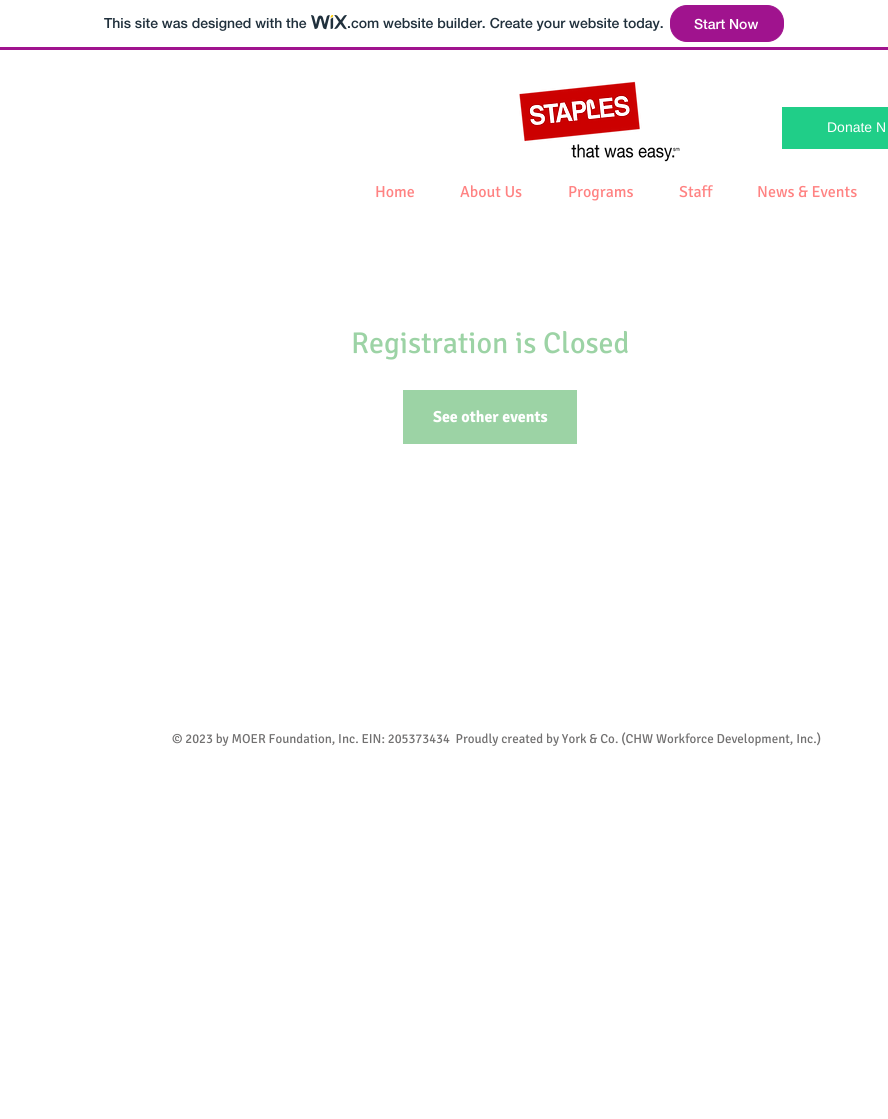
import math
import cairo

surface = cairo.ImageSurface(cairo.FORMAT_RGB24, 888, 1119)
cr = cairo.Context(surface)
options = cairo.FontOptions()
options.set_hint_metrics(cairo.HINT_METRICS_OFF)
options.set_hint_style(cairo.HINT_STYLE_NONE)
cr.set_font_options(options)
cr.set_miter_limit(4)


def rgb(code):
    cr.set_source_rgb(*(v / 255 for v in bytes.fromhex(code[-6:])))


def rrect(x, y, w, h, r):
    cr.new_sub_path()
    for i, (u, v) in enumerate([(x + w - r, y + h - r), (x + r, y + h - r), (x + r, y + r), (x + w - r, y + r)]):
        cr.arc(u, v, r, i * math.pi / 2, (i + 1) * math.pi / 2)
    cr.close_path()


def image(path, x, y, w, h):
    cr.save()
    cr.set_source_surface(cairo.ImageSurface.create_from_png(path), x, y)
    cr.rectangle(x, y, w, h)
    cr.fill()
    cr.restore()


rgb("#ffffff")
cr.paint()
rgb("#a0138e")
cr.rectangle(0, 47, 888, 3)
cr.fill()
image("img/1.png", 311, 15, 36, 15)
rrect(670.5, 5.5, 113, 36, 16.5)
cr.fill_preserve()
cr.set_line_width(1)
cr.stroke()
image("img/2.png", 519, 81, 161, 81)
rgb("#20ce88")
cr.rectangle(782, 107, 106, 42)
cr.fill()
rgb("#9cd3a5")
cr.rectangle(403, 390, 174, 54)
cr.fill()
cr.select_font_face("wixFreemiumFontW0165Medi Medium")
cr.set_font_size(14)
rgb("#20303c")
cr.move_to(104, 28)
cr.show_text("This site was designed with the")
cr.move_to(347, 28)
cr.show_text(".com website builder. Create your website today.")
rgb("#ffffff")
cr.move_to(694, 29)
cr.show_text("Start Now")
cr.select_font_face("Liberation Sans")
cr.move_to(827, 132)
cr.show_text("Donate N")
cr.select_font_face("Signika")
cr.set_font_size(16)
rgb("#ff8282")
for x, y, s in [
    (375, 197, "Home"),
    (460, 197, "About Us"),
    (568, 197, "Programs"),
    (679, 197, "Staff"),
    (757, 197, "News & Events"),
]:
    cr.move_to(x, y)
    cr.show_text(s)
cr.set_font_size(30)
rgb("#9cd3a5")
cr.move_to(351, 353)
cr.show_text("Registration is Closed")
cr.select_font_face("Signika", cairo.FONT_SLANT_NORMAL, cairo.FONT_WEIGHT_BOLD)
cr.set_font_size(16)
rgb("#ffffff")
cr.move_to(433, 422)
cr.show_text("See other events")
cr.select_font_face("Signika")
cr.set_font_size(13)
rgb("#717070")
cr.move_to(172, 743)
cr.show_text("© 2023 by MOER Foundation, Inc. EIN: 205373434  Proudly created by York & Co. (CHW Workforce Development, Inc.)")
surface.write_to_png("page.png")
